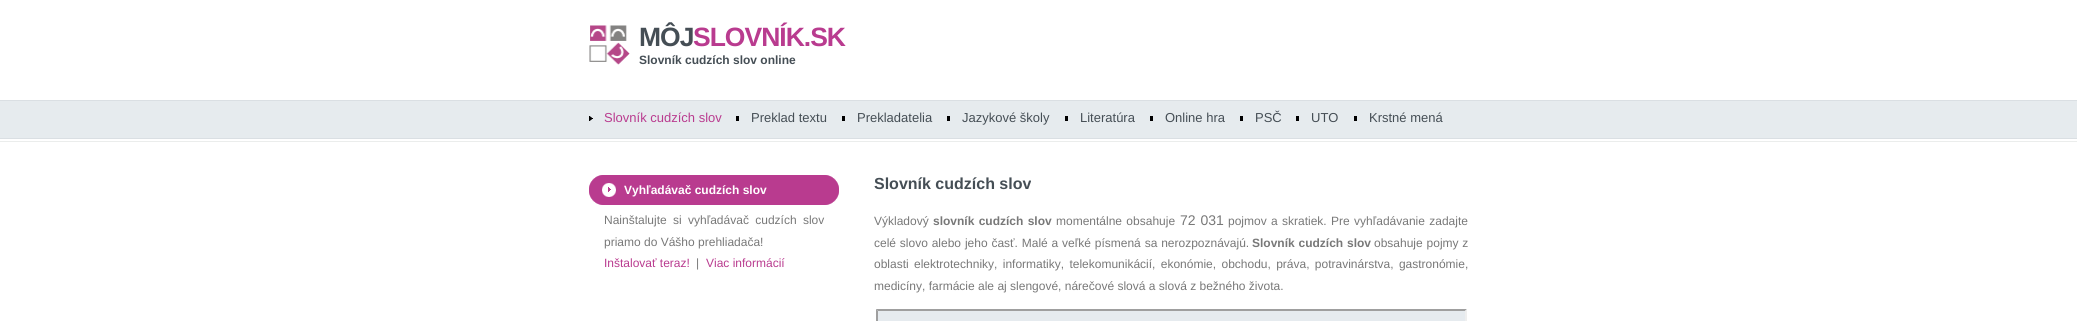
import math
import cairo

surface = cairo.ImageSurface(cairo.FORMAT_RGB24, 2077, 321)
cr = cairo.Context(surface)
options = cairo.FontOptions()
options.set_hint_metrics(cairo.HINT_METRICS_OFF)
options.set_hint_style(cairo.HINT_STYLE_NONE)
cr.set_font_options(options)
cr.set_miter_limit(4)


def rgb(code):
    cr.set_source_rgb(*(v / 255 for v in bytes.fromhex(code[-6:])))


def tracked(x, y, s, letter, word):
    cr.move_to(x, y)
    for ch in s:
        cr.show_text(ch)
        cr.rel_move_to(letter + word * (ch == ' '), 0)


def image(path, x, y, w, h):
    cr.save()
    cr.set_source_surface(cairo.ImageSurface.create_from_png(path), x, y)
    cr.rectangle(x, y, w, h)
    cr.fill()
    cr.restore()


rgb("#ffffff")
cr.paint()
image("img/1.png", 0, 100, 2077, 42)
image("img/2.png", 589, 25, 41, 40)
image("img/3.png", 589, 116, 4, 5)
for x, y, w, h, color in [
    (736, 116, 3, 5, "#000000"),
    (842, 116, 3, 5, "#000000"),
    (947, 116, 3, 5, "#000000"),
    (1065, 116, 3, 5, "#000000"),
    (1150, 116, 3, 5, "#000000"),
    (1240, 116, 3, 5, "#000000"),
    (1296, 116, 3, 5, "#000000"),
    (1354, 116, 3, 5, "#000000"),
]:
    rgb(color)
    cr.rectangle(x, y, w, h)
    cr.fill()
image("img/4.png", 589, 175, 250, 30)
rgb("#e6ebef")
cr.rectangle(876, 309, 591, 12)
cr.fill()
rgb("#9f9f9f")
cr.new_path()
cr.move_to(876, 309)
cr.line_to(1467, 309)
cr.line_to(1465, 311)
cr.line_to(878, 311)
cr.close_path()
cr.fill()
rgb("#efefef")
cr.new_path()
cr.move_to(1467, 309)
cr.line_to(1467, 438)
cr.line_to(1465, 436)
cr.line_to(1465, 311)
cr.close_path()
cr.fill()
rgb("#9f9f9f")
cr.new_path()
cr.move_to(876, 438)
cr.line_to(876, 309)
cr.line_to(878, 311)
cr.line_to(878, 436)
cr.close_path()
cr.fill()
cr.select_font_face("Liberation Sans", cairo.FONT_SLANT_NORMAL, cairo.FONT_WEIGHT_BOLD)
cr.set_font_size(26.5)
rgb("#454e55")
tracked(639, 46, "MÔJ", -1, 0)
rgb("#b93b8f")
tracked(693, 46, "SLOVNÍK.SK", -1, 0)
cr.set_font_size(12)
rgb("#454e55")
cr.move_to(639, 64)
cr.show_text("Slovník cudzích slov online")
cr.select_font_face("Liberation Sans")
cr.set_font_size(13)
rgb("#b93b8f")
cr.move_to(604, 122)
cr.show_text("Slovník cudzích slov")
rgb("#454e55")
for x, y, s in [
    (751, 122, "Preklad textu"),
    (857, 122, "Prekladatelia"),
    (962, 122, "Jazykové školy"),
    (1080, 122, "Literatúra"),
    (1165, 122, "Online hra"),
    (1255, 122, "PSČ"),
    (1311, 122, "UTO"),
    (1369, 122, "Krstné mená"),
]:
    cr.move_to(x, y)
    cr.show_text(s)
cr.select_font_face("Liberation Sans", cairo.FONT_SLANT_NORMAL, cairo.FONT_WEIGHT_BOLD)
cr.set_font_size(12)
rgb("#ffffff")
cr.move_to(624, 194)
cr.show_text("Vyhľadávač cudzích slov")
cr.select_font_face("Liberation Sans")
rgb("#787878")
tracked(604, 224, "Nainštalujte si vyhľadávač cudzích slov", 0, 3)
cr.move_to(604, 246)
cr.show_text("priamo do Vášho prehliadača!")
rgb("#b93b8f")
cr.move_to(604, 267)
cr.show_text("Inštalovať teraz!")
rgb("#787878")
cr.move_to(696, 267)
cr.show_text("|")
rgb("#b93b8f")
cr.move_to(706, 267)
cr.show_text("Viac informácií")
cr.select_font_face("Liberation Sans", cairo.FONT_SLANT_NORMAL, cairo.FONT_WEIGHT_BOLD)
cr.set_font_size(16)
rgb("#454e55")
cr.move_to(874, 189)
cr.show_text("Slovník cudzích slov")
cr.select_font_face("Liberation Sans")
cr.set_font_size(12)
rgb("#787878")
cr.move_to(874, 225)
cr.show_text("Výkladový")
cr.select_font_face("Liberation Sans", cairo.FONT_SLANT_NORMAL, cairo.FONT_WEIGHT_BOLD)
tracked(933, 225, "slovník cudzích slov", 0, 1)
cr.select_font_face("Liberation Sans")
tracked(1056, 225, "momentálne obsahuje", 0, 1)
cr.set_font_size(14)
tracked(1180, 225, "72 031", 0, 1)
cr.set_font_size(12)
tracked(1228, 225, "pojmov a skratiek. Pre vyhľadávanie zadajte", 0, 1)
tracked(874, 247, "celé slovo alebo jeho časť. Malé a veľké písmená sa nerozpoznávajú.", 0, 0.5)
cr.select_font_face("Liberation Sans", cairo.FONT_SLANT_NORMAL, cairo.FONT_WEIGHT_BOLD)
tracked(1252, 247, "Slovník cudzích slov", 0, 0.5)
cr.select_font_face("Liberation Sans")
tracked(1374, 247, "obsahuje pojmy z", 0, 0.5)
tracked(874, 268, "oblasti elektrotechniky, informatiky, telekomunikácií, ekonómie, obchodu, práva, potravinárstva, gastronómie,", 0, 2)
cr.move_to(874, 290)
cr.show_text("medicíny, farmácie ale aj slengové, nárečové slová a slová z bežného života.")
surface.write_to_png("page.png")
